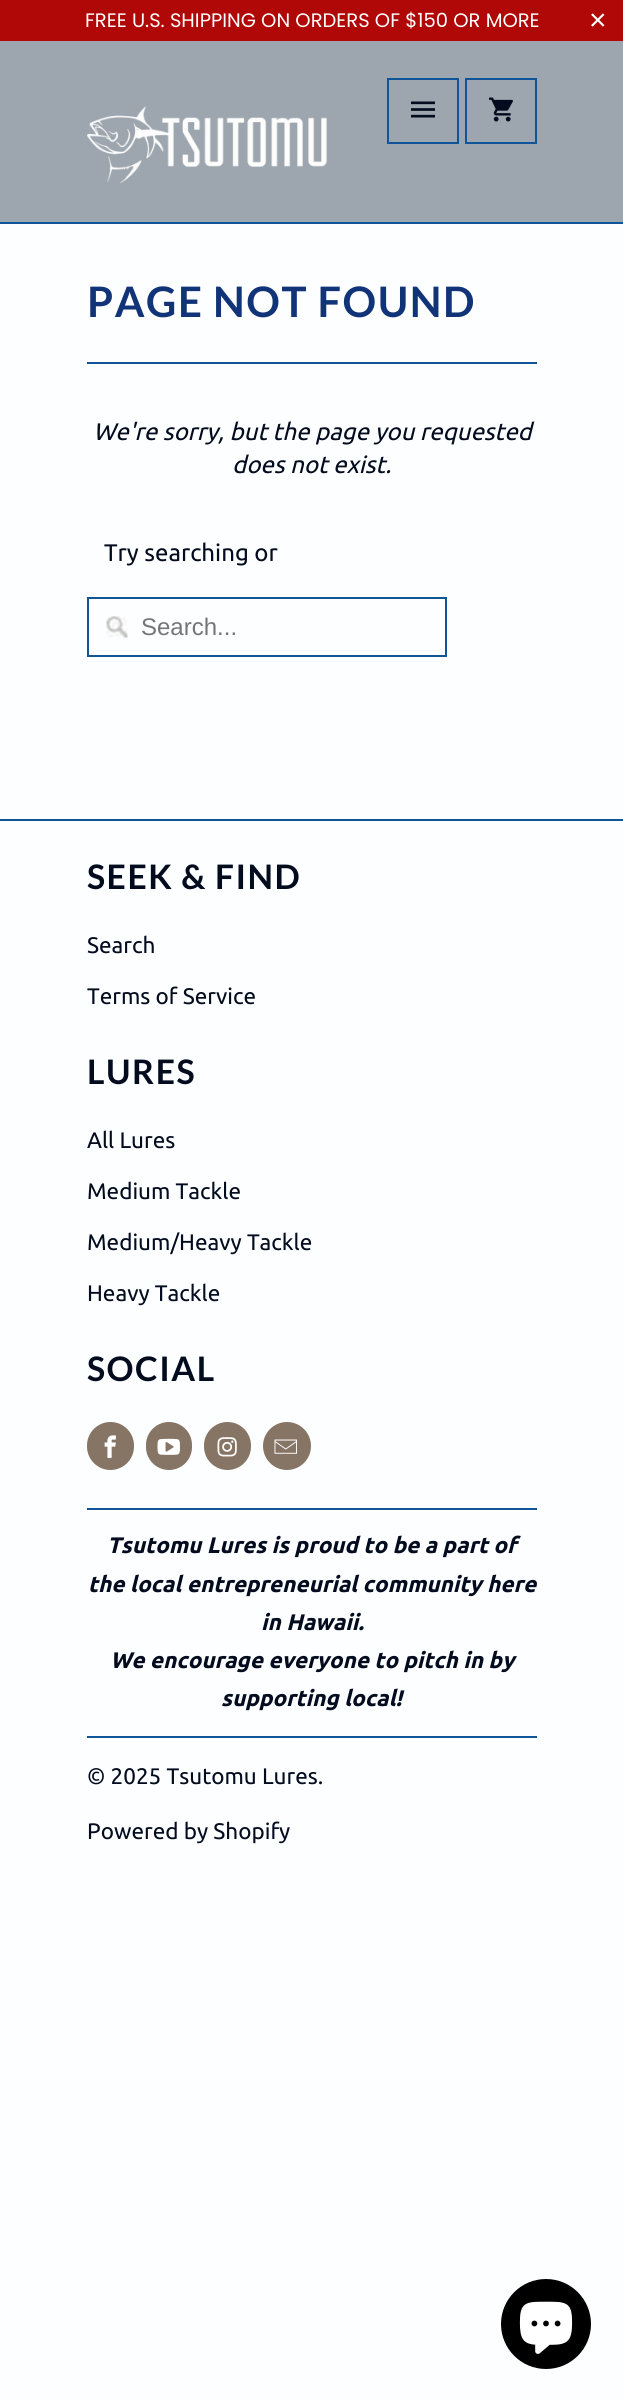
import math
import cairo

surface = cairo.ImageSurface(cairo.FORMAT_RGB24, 623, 2399)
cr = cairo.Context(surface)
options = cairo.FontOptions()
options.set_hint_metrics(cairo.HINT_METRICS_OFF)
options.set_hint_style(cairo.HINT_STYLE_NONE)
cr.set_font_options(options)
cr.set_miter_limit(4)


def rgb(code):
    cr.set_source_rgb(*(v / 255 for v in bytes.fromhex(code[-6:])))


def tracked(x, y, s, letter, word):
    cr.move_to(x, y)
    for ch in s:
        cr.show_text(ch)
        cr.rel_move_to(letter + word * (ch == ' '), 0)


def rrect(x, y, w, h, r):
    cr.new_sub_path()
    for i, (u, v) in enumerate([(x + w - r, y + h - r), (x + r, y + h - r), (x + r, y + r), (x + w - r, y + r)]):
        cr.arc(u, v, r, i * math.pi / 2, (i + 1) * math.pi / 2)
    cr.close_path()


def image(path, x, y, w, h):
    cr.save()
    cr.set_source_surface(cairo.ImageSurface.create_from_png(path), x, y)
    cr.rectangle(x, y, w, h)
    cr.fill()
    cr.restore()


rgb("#fdfeff")
cr.paint()
for x, y, w, h, color in [
    (0, 0, 623, 41, "#b00707"),
    (0, 41, 623, 181, "#9da6ae"),
    (0, 222, 623, 2, "#115599"),
]:
    rgb(color)
    cr.rectangle(x, y, w, h)
    cr.fill()
image("img/1.png", 87, 106, 240, 77)
cr.rectangle(388, 79, 70, 64)
cr.stroke()
image("img/2.png", 411, 101, 24, 17)
cr.rectangle(466, 79, 70, 64)
cr.stroke()
image("img/3.png", 489, 97, 24, 25)
cr.rectangle(87, 362, 450, 2)
cr.fill()
image("img/4.png", 106, 616, 22, 22)
cr.rectangle(88, 598, 358, 58)
cr.stroke()
cr.rectangle(0, 819, 623, 2)
cr.fill()
rgb("#867465")
rrect(87, 1422, 47, 48, 23.5)
cr.fill()
image("img/5.png", 104, 1435, 12, 23)
rrect(146, 1422, 46, 48, 23)
cr.fill()
image("img/6.png", 157, 1438, 23, 17)
rrect(204, 1422, 47, 48, 23.5)
cr.fill()
image("img/7.png", 217, 1437, 20, 20)
cr.arc(287, 1446, 24, 0, 2 * math.pi)
cr.fill()
image("img/8.png", 274, 1439, 23, 15)
rgb("#115599")
cr.rectangle(87, 1508, 450, 2)
cr.fill()
cr.rectangle(87, 1736, 450, 2)
cr.fill()
rgb("#000000")
cr.arc(546, 2324, 45, 0, 2 * math.pi)
cr.fill()
image("img/9.png", 519, 2301, 54, 53)
cr.select_font_face("Poppins")
cr.set_font_size(19.5)
rgb("#ffffff")
cr.move_to(85, 27)
cr.show_text("FREE U.S. SHIPPING ON ORDERS OF $150 OR MORE")
cr.select_font_face("Liberation Sans")
cr.set_font_size(30)
cr.move_to(589, 30)
cr.show_text("×")
cr.select_font_face("Lato", cairo.FONT_SLANT_NORMAL, cairo.FONT_WEIGHT_BOLD)
cr.set_font_size(42)
rgb("#113377")
tracked(87, 317, "PAGE NOT FOUND", 1.5, 0)
cr.select_font_face("Ubuntu", cairo.FONT_SLANT_ITALIC)
cr.set_font_size(24)
rgb("#030c1e")
cr.move_to(93, 440)
cr.show_text("We're sorry, but the page you requested")
cr.move_to(232, 473)
cr.show_text("does not exist.")
cr.select_font_face("Ubuntu")
cr.move_to(104, 561)
cr.show_text("Try searching or")
cr.select_font_face("Liberation Sans")
rgb("#757575")
cr.move_to(141, 635)
cr.show_text("Search...")
cr.select_font_face("Lato", cairo.FONT_SLANT_NORMAL, cairo.FONT_WEIGHT_BOLD)
cr.set_font_size(33.75)
rgb("#030c1e")
tracked(87, 889, "SEEK & FIND", 1.5, 0)
cr.select_font_face("Ubuntu")
cr.set_font_size(22.5)
cr.move_to(87, 953)
cr.show_text("Search")
cr.move_to(87, 1004)
cr.show_text("Terms of Service")
cr.select_font_face("Lato", cairo.FONT_SLANT_NORMAL, cairo.FONT_WEIGHT_BOLD)
cr.set_font_size(33.75)
tracked(87, 1084, "LURES", 1.5, 0)
cr.select_font_face("Ubuntu")
cr.set_font_size(22.5)
for x, y, s in [
    (87, 1148, "All Lures"),
    (87, 1199, "Medium Tackle"),
    (87, 1250, "Medium/Heavy Tackle"),
    (87, 1301, "Heavy Tackle"),
]:
    cr.move_to(x, y)
    cr.show_text(s)
cr.select_font_face("Lato", cairo.FONT_SLANT_NORMAL, cairo.FONT_WEIGHT_BOLD)
cr.set_font_size(33.75)
tracked(87, 1381, "SOCIAL", 1.5, 0)
cr.select_font_face("Ubuntu", cairo.FONT_SLANT_ITALIC, cairo.FONT_WEIGHT_BOLD)
cr.set_font_size(22.5)
for x, y, s in [
    (107, 1553, "Tsutomu Lures is proud to be a part of"),
    (88, 1592, "the local entrepreneurial community here"),
    (261, 1630, "in Hawaii."),
    (110, 1668, "We encourage everyone to pitch in by"),
    (221, 1706, "supporting local!"),
]:
    cr.move_to(x, y)
    cr.show_text(s)
cr.select_font_face("Ubuntu")
cr.move_to(87, 1784)
cr.show_text("© 2025 Tsutomu Lures.")
cr.move_to(87, 1839)
cr.show_text("Powered by Shopify")
surface.write_to_png("page.png")
